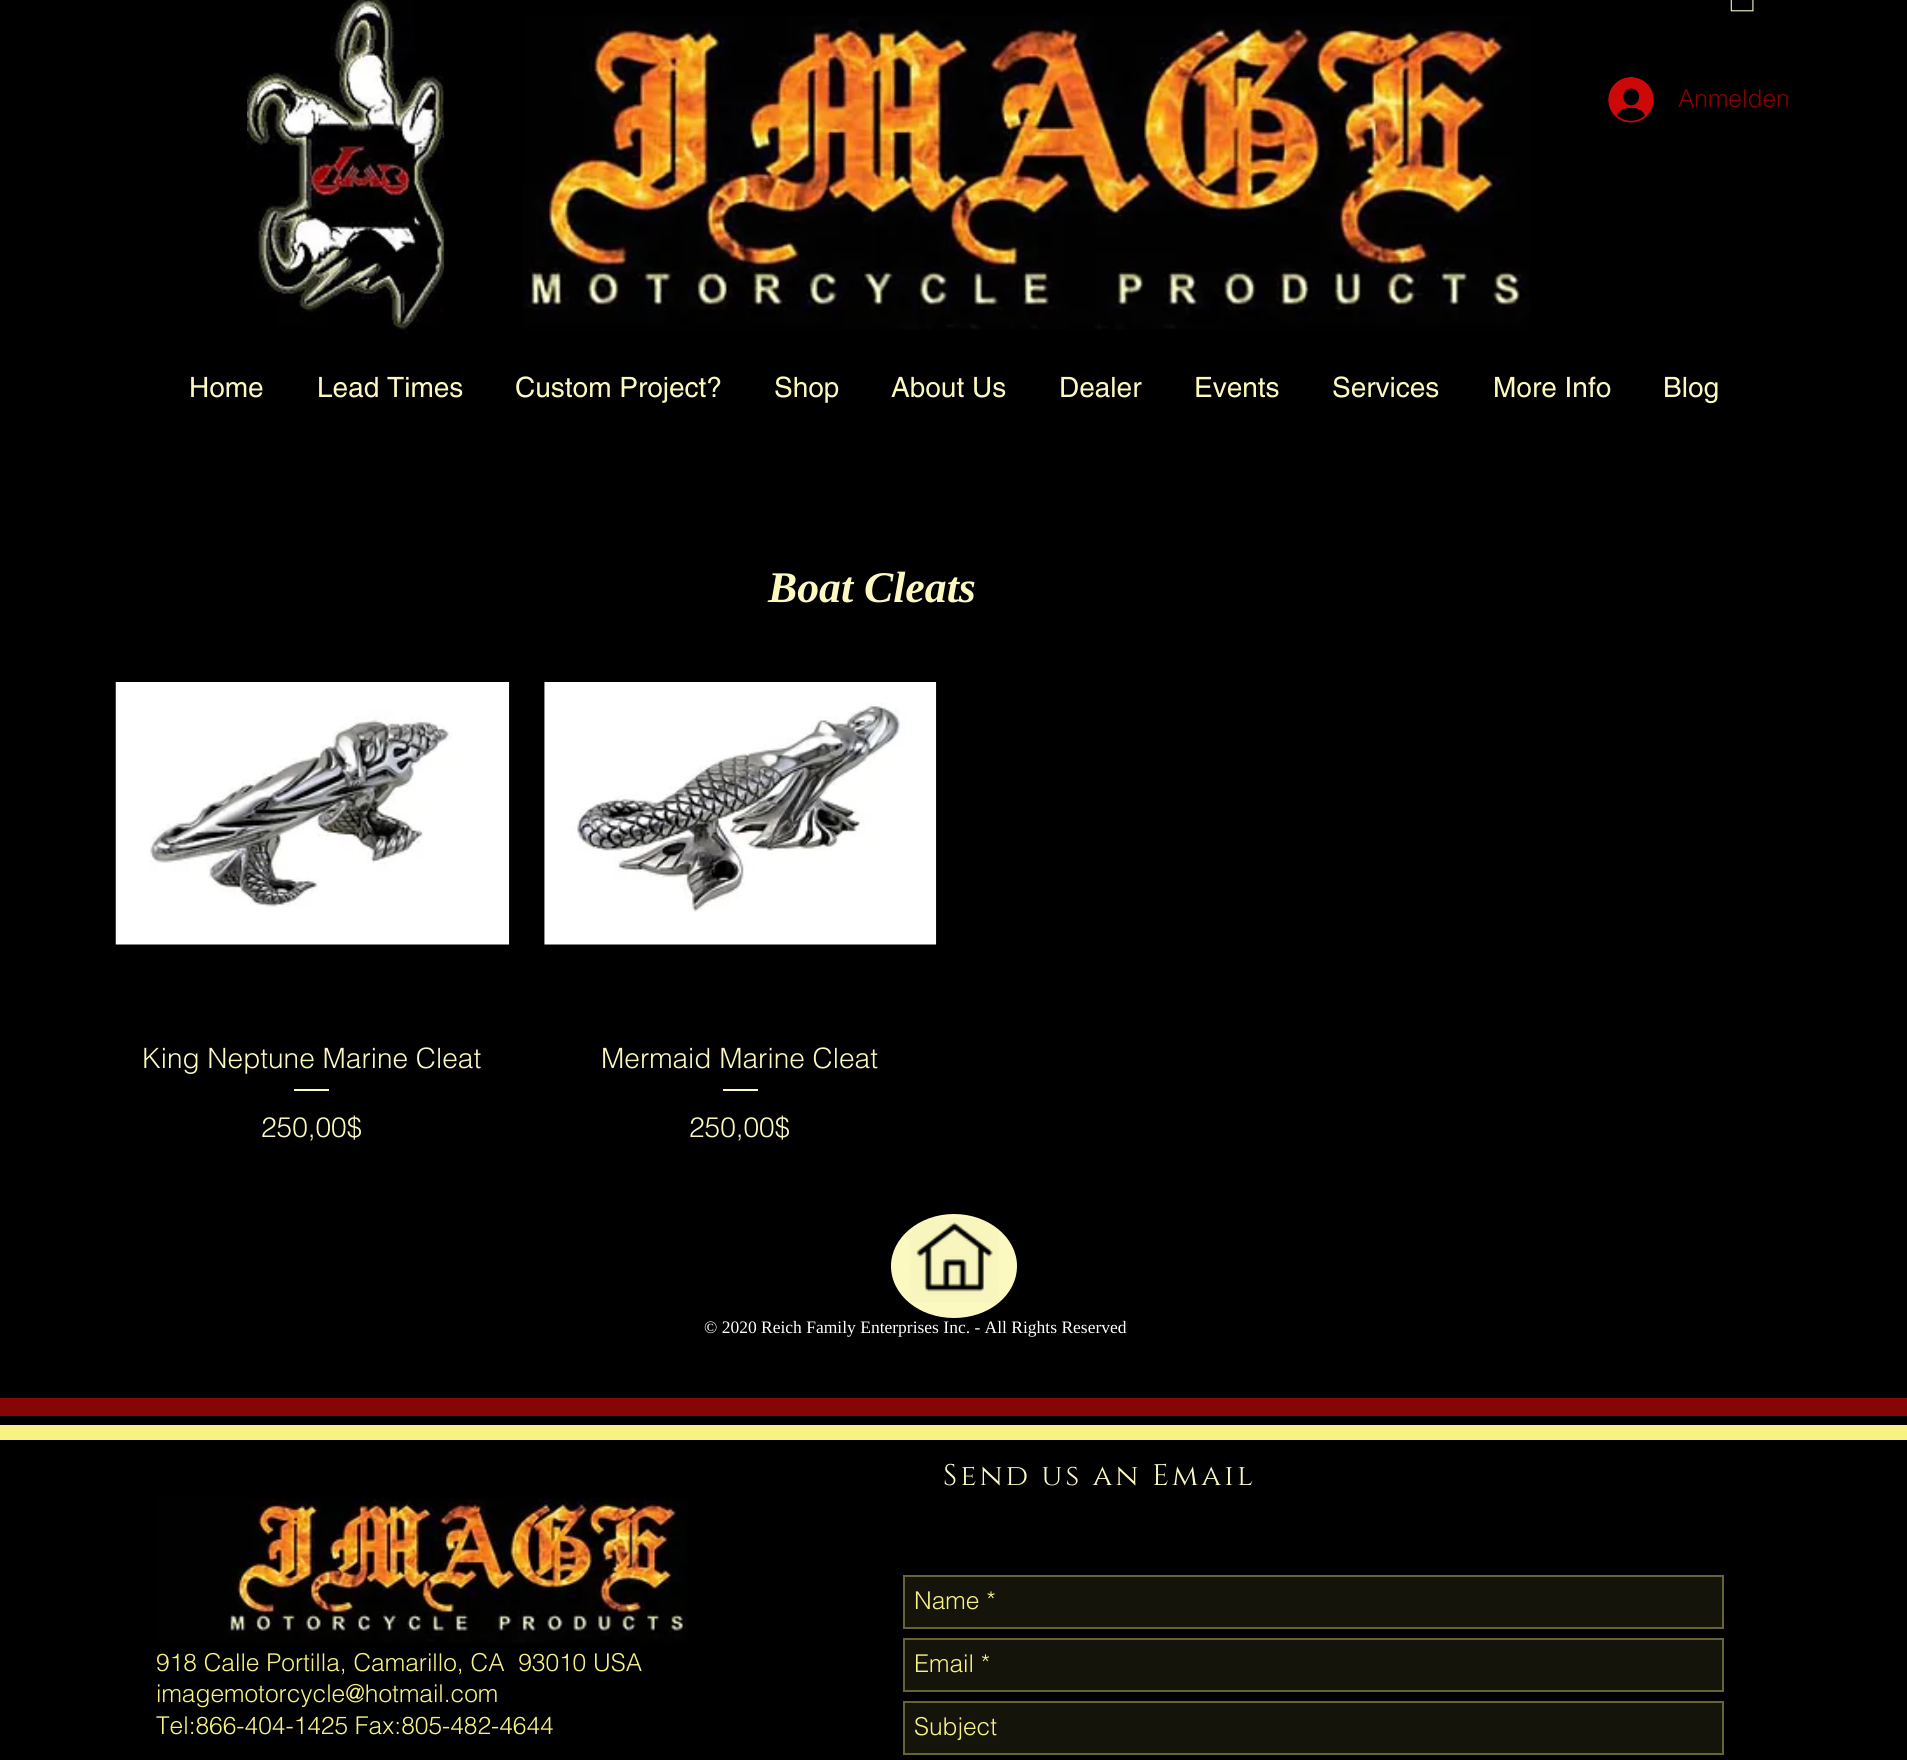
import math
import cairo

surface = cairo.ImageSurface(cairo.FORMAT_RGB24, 1907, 1760)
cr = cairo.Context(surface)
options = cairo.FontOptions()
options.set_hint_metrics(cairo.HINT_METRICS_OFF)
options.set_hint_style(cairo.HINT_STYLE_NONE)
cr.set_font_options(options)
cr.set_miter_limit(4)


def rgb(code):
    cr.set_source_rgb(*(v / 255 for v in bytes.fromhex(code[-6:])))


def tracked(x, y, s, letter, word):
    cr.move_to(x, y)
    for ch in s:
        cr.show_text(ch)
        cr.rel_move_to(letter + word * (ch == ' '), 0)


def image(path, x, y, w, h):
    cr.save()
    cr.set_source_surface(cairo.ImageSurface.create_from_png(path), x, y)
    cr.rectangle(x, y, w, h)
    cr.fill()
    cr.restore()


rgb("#000000")
cr.paint()
image("img/1.png", 247, 0, 198, 334)
image("img/2.png", 1730, 0, 24, 12)
image("img/3.png", 523, 15, 1007, 315)
image("img/4.png", 1608, 77, 46, 46)
image("img/5.png", 115, 682, 395, 263)
rgb("#fbf8c0")
cr.rectangle(294, 1089, 35, 2)
cr.fill()
image("img/6.png", 544, 682, 393, 263)
cr.rectangle(723, 1089, 35, 2)
cr.fill()
cr.new_path()
cr.move_to(1017, 1266)
cr.curve_to(1017, 1295, 989, 1318, 954, 1318)
cr.curve_to(919, 1318, 891, 1295, 891, 1266)
cr.curve_to(891, 1238, 919, 1214, 954, 1214)
cr.curve_to(989, 1214, 1017, 1238, 1017, 1266)
cr.close_path()
cr.fill()
image("img/7.png", 910, 1218, 89, 85)
rgb("#880505")
cr.rectangle(0, 1398, 1907, 18)
cr.fill()
rgb("#f7f283")
cr.rectangle(0, 1425, 1907, 15)
cr.fill()
image("img/8.png", 157, 1497, 531, 146)
rgb("#14140b")
cr.rectangle(904, 1576, 819, 52)
cr.fill_preserve()
rgb("#666436")
cr.stroke()
rgb("#14140b")
cr.rectangle(904, 1639, 819, 52)
cr.fill_preserve()
rgb("#666436")
cr.stroke()
rgb("#14140b")
cr.rectangle(904, 1702, 819, 52)
cr.fill_preserve()
rgb("#666436")
cr.stroke()
cr.select_font_face("helvetica Light")
cr.set_font_size(24.5)
rgb("#8b0000")
cr.move_to(1678, 107)
cr.show_text("Anmelden")
cr.select_font_face("helvetica")
cr.set_font_size(28)
rgb("#fbf8c0")
for x, y, s in [
    (189, 397, "Home"),
    (317, 397, "Lead Times"),
    (515, 397, "Custom Project?"),
    (774, 397, "Shop"),
    (891, 397, "About Us"),
    (1059, 397, "Dealer"),
    (1194, 397, "Events"),
    (1332, 397, "Services"),
    (1493, 397, "More Info"),
    (1663, 397, "Blog"),
]:
    cr.move_to(x, y)
    cr.show_text(s)
cr.select_font_face("Liberation Serif", cairo.FONT_SLANT_ITALIC, cairo.FONT_WEIGHT_BOLD)
cr.set_font_size(43.75)
cr.move_to(768, 602)
cr.show_text("Boat Cleats")
cr.select_font_face("helvetica Light")
cr.set_font_size(28)
for x, y, s in [
    (142, 1068, "King Neptune Marine Cleat"),
    (261, 1137, "250,00$"),
    (601, 1068, "Mermaid Marine Cleat"),
    (689, 1137, "250,00$"),
]:
    cr.move_to(x, y)
    cr.show_text(s)
cr.select_font_face("Liberation Serif")
cr.set_font_size(17.5)
rgb("#ffffff")
cr.move_to(704, 1333)
cr.show_text("© 2020 Reich Family Enterprises Inc. - All Rights Reserved")
cr.select_font_face("Cinzel")
cr.set_font_size(29.75)
rgb("#fbf8c0")
tracked(943, 1485, "Send us an Email", 3, 0)
cr.select_font_face("helvetica Light")
cr.set_font_size(24.5)
rgb("#f7f283")
for x, y, s in [
    (156, 1671, "918 Calle Portilla, Camarillo, CA  93010 USA"),
    (156, 1702, "imagemotorcycle@hotmail.com"),
    (156, 1734, "Tel:866-404-1425 Fax:805-482-4644"),
    (914, 1609, "Name *"),
    (914, 1672, "Email *"),
    (914, 1735, "Subject"),
]:
    cr.move_to(x, y)
    cr.show_text(s)
surface.write_to_png("page.png")
